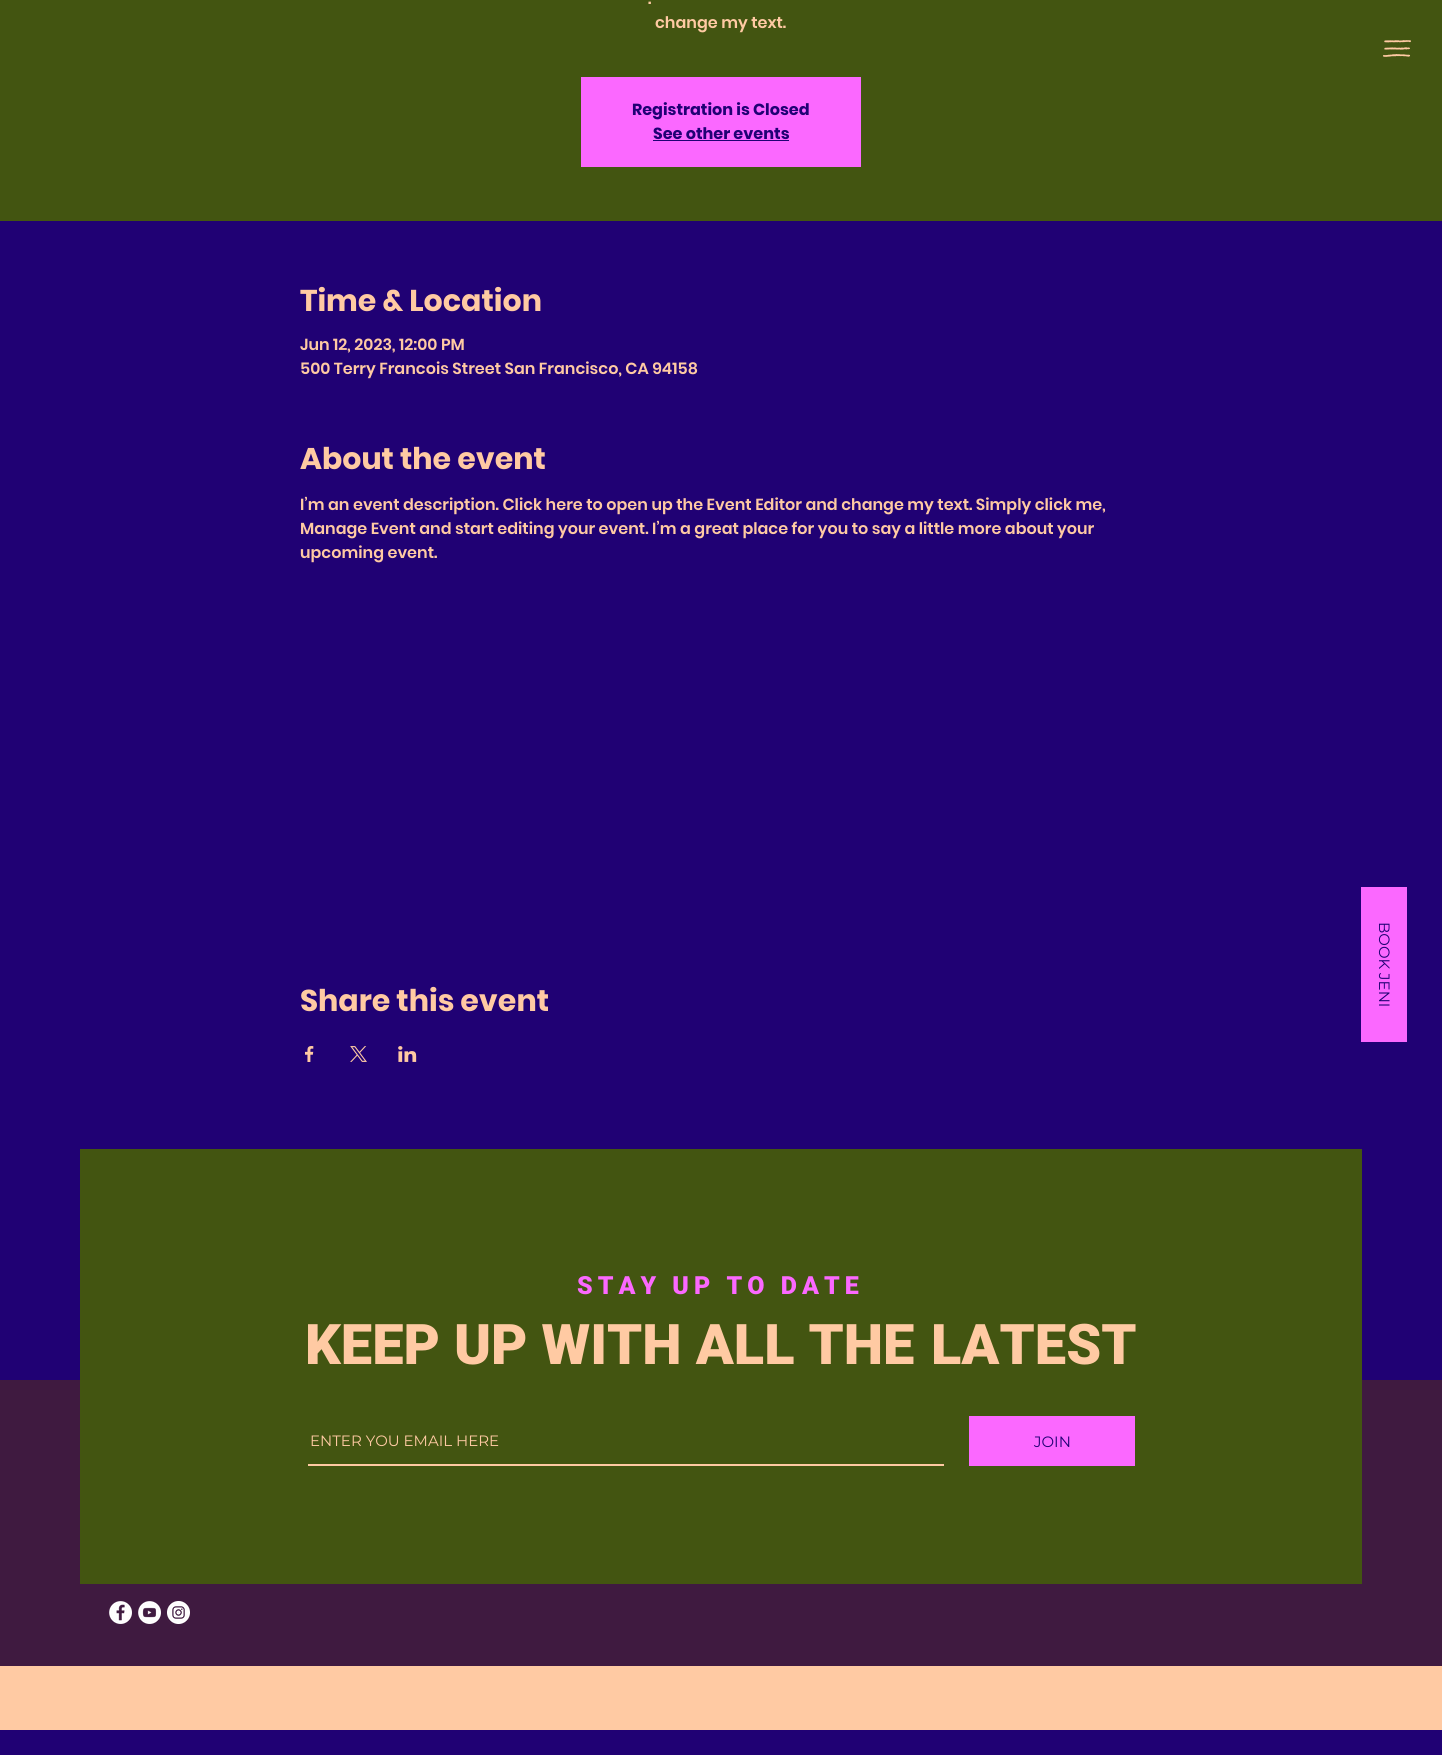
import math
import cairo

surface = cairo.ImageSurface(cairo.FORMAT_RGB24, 1442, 1755)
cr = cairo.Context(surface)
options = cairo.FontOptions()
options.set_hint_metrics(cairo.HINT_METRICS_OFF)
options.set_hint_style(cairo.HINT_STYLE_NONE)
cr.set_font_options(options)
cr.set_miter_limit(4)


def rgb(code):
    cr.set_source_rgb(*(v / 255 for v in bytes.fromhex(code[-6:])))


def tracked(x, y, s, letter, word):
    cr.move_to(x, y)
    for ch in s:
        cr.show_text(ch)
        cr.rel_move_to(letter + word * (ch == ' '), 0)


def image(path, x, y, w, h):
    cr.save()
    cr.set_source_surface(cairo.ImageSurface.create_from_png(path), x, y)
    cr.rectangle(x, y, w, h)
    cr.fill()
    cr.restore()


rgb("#200174")
cr.paint()
for x, y, w, h, color in [
    (0, 0, 1442, 221, "#435511"),
    (581, 77, 280, 90, "#fb68ff"),
    (653, 140, 136, 1, "#200174"),
]:
    rgb(color)
    cr.rectangle(x, y, w, h)
    cr.fill()
image("img/1.png", 305, 1046, 9, 16)
image("img/2.png", 350, 1046, 17, 16)
image("img/3.png", 398, 1046, 19, 16)
image("img/4.png", 1383, 40, 28, 17)
for x, y, w, h, color in [
    (1361, 887, 46, 155, "#fb68ff"),
    (0, 1380, 361, 286, "#3f1a40"),
    (1082, 1380, 360, 286, "#3f1a40"),
    (80, 1149, 1282, 435, "#435511"),
    (308, 1464, 636, 2, "#ffcaa3"),
    (969, 1416, 166, 50, "#fb68ff"),
]:
    rgb(color)
    cr.rectangle(x, y, w, h)
    cr.fill()
image("img/5.png", 109, 1601, 23, 23)
image("img/6.png", 138, 1601, 23, 23)
image("img/7.png", 167, 1601, 23, 23)
rgb("#3f1a40")
cr.rectangle(361, 1584, 721, 82)
cr.fill()
rgb("#ffcaa3")
cr.rectangle(0, 1666, 1442, 64)
cr.fill()
cr.select_font_face("Poppins SemiBold")
cr.set_font_size(16)
cr.move_to(648, 4)
cr.show_text(".")
cr.move_to(655, 28)
cr.show_text("change my text.")
cr.select_font_face("Poppins", cairo.FONT_SLANT_NORMAL, cairo.FONT_WEIGHT_BOLD)
rgb("#200174")
cr.move_to(632, 115)
cr.show_text("Registration is Closed")
cr.move_to(653, 139)
cr.show_text("See other events")
cr.set_font_size(30)
rgb("#ffcaa3")
cr.move_to(300, 311)
cr.show_text("Time & Location")
cr.select_font_face("Poppins SemiBold")
cr.set_font_size(16)
cr.move_to(300, 350)
cr.show_text("Jun 12, 2023, 12:00 PM")
cr.move_to(300, 374)
cr.show_text("500 Terry Francois Street San Francisco, CA 94158")
cr.select_font_face("Poppins", cairo.FONT_SLANT_NORMAL, cairo.FONT_WEIGHT_BOLD)
cr.set_font_size(30)
cr.move_to(300, 469)
cr.show_text("About the event")
cr.select_font_face("Poppins SemiBold")
cr.set_font_size(16)
for x, y, s in [
    (300, 510, "I’m an event description. Click here to open up the Event Editor and change my text. Simply click me,"),
    (300, 534, "Manage Event and start editing your event. I’m a great place for you to say a little more about your"),
    (300, 558, "upcoming event."),
]:
    cr.move_to(x, y)
    cr.show_text(s)
cr.select_font_face("Poppins", cairo.FONT_SLANT_NORMAL, cairo.FONT_WEIGHT_BOLD)
cr.set_font_size(30)
cr.move_to(300, 1011)
cr.show_text("Share this event")
cr.select_font_face("Montserrat")
cr.set_font_size(15)
rgb("#200174")
cr.save()
cr.translate(1379, 922)
cr.rotate(90 * math.pi / 180)
cr.move_to(0, 0)
cr.show_text("BOOK JENI")
cr.restore()
cr.select_font_face("Roboto Black")
cr.set_font_size(25)
rgb("#fb68ff")
tracked(577, 1294, "STAY UP TO DATE", 5, 0)
cr.set_font_size(56)
rgb("#ffcaa3")
cr.move_to(305, 1364)
cr.show_text("KEEP UP WITH ALL THE")
cr.move_to(931, 1364)
cr.show_text("LATEST")
cr.select_font_face("Montserrat")
cr.set_font_size(15)
cr.move_to(310, 1446)
cr.show_text("ENTER YOU EMAIL HERE")
rgb("#200174")
cr.move_to(1034, 1447)
cr.show_text("JOIN")
surface.write_to_png("page.png")
